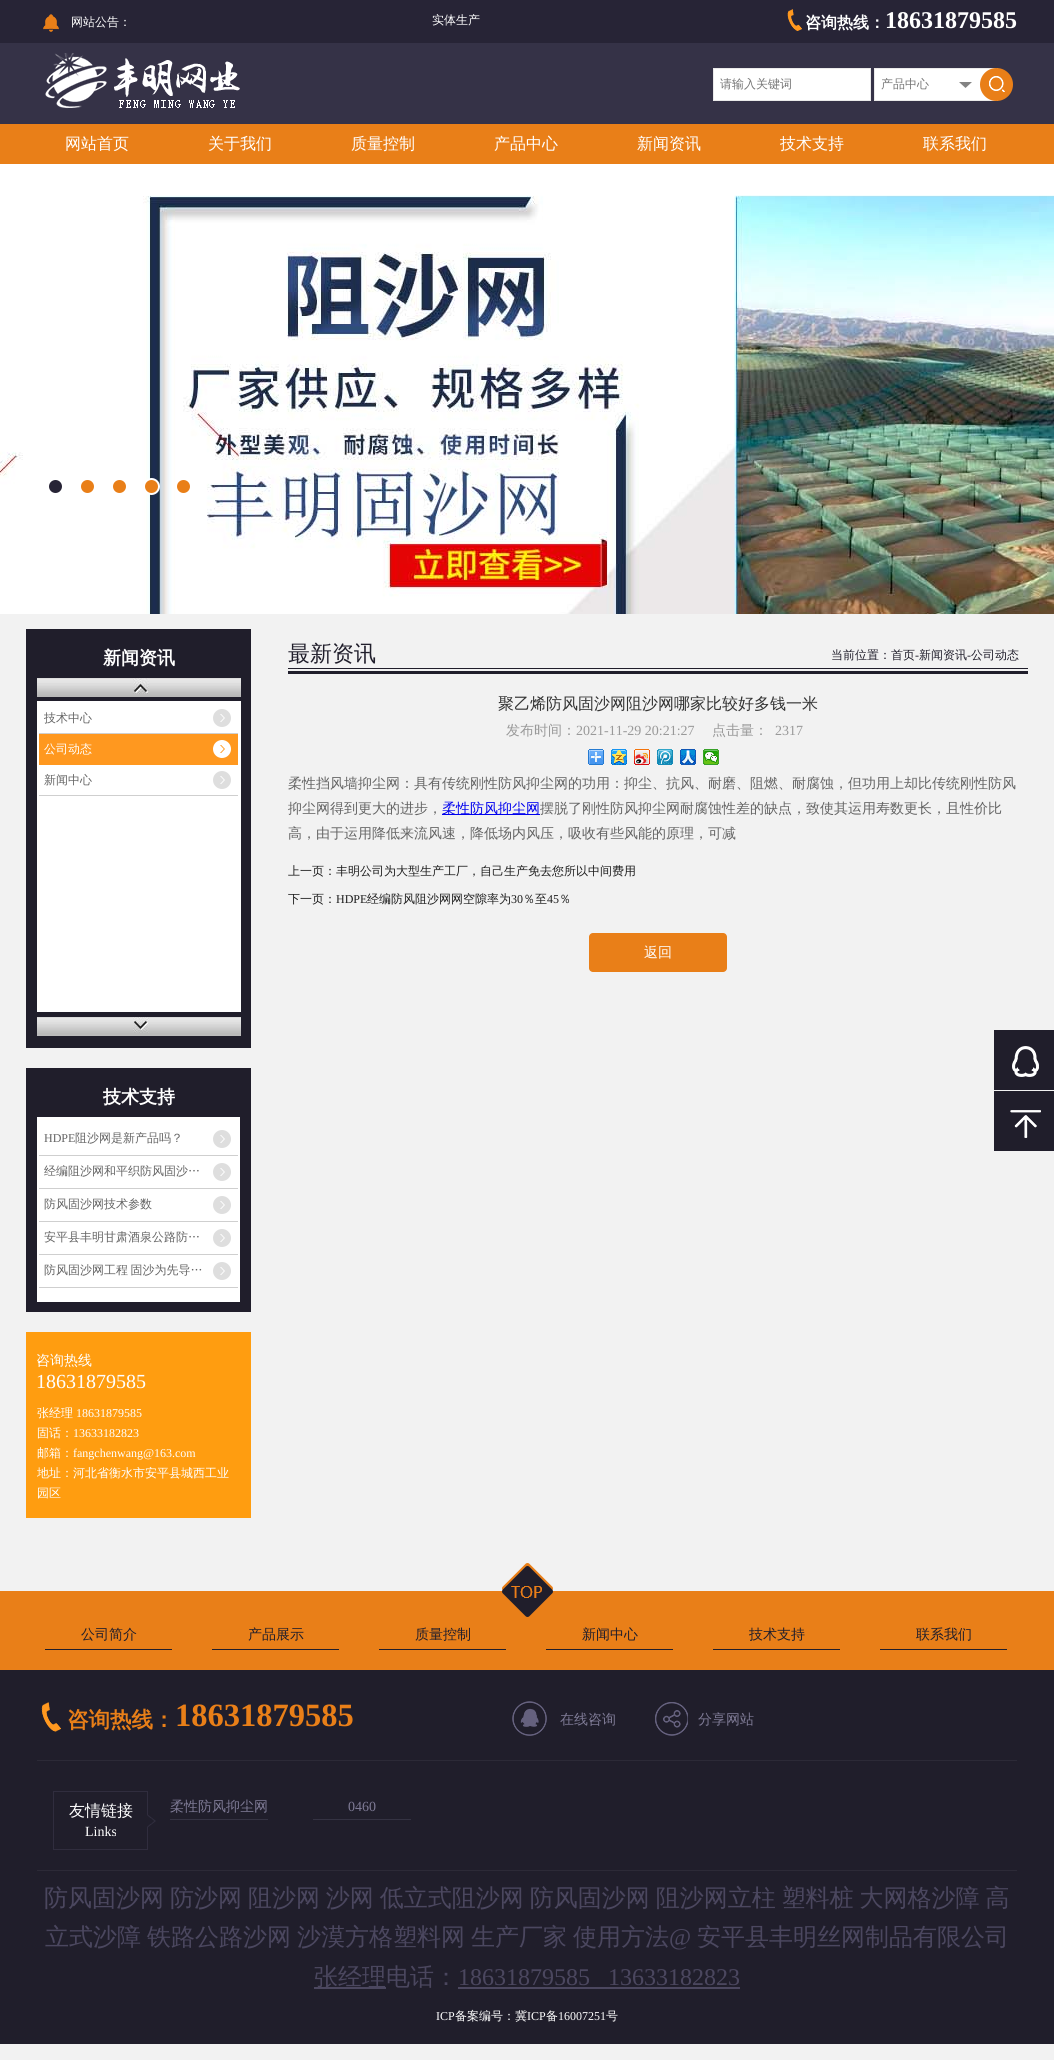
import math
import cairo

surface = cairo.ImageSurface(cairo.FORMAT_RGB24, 1054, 2060)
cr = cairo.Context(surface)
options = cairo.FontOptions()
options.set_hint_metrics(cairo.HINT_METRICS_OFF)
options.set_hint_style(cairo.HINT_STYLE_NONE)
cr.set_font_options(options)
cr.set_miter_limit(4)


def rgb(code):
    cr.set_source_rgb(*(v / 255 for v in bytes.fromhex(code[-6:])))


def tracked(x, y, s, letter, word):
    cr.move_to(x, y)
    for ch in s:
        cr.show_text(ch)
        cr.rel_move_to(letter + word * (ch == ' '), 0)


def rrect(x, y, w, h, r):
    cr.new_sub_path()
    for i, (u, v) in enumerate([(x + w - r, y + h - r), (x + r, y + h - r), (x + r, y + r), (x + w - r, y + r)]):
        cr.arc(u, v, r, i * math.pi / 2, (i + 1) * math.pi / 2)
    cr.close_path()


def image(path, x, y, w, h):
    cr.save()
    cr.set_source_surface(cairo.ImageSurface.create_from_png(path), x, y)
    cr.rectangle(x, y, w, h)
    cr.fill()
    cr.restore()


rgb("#f2f2f2")
cr.paint()
rgb("#272436")
cr.rectangle(0, 0, 1054, 43)
cr.fill()
image("img/1.png", 43, 14, 16, 18)
image("img/2.png", 787, 9, 15, 22)
rgb("#353247")
cr.rectangle(0, 43, 1054, 81)
cr.fill()
image("img/3.png", 45, 53, 195, 56)
rgb("#ffffff")
cr.rectangle(713.5, 68.5, 157, 32)
cr.fill_preserve()
rgb("#eaeaea")
cr.set_line_width(1)
cr.stroke()
rgb("#ffffff")
cr.rectangle(875, 69, 105, 31)
cr.fill()
image("img/4.png", 959, 82, 13, 6)
cr.rectangle(874.5, 68.5, 107, 32)
rgb("#eaeaea")
cr.stroke()
image("img/5.png", 980, 68, 33, 33)
rgb("#e97f18")
cr.rectangle(0, 124, 1054, 40)
cr.fill()
image("img/6.png", 0, 164, 1054, 450)
rgb("#272436")
cr.arc(55.5, 486.5, 7.5, 0, 2 * math.pi)
cr.fill_preserve()
rgb("#ffffff")
cr.set_line_width(2)
cr.stroke()
rgb("#e97f18")
cr.arc(87.5, 486.5, 7.5, 0, 2 * math.pi)
cr.fill_preserve()
rgb("#ffffff")
cr.stroke()
rgb("#e97f18")
cr.arc(119.5, 486.5, 7.5, 0, 2 * math.pi)
cr.fill_preserve()
rgb("#ffffff")
cr.stroke()
rgb("#e97f18")
cr.arc(151.5, 486.5, 7.5, 0, 2 * math.pi)
cr.fill_preserve()
rgb("#ffffff")
cr.stroke()
rgb("#e97f18")
cr.arc(183.5, 486.5, 7.5, 0, 2 * math.pi)
cr.fill_preserve()
rgb("#ffffff")
cr.stroke()
rgb("#201e2b")
cr.rectangle(26, 629, 225, 419)
cr.fill()
image("img/7.png", 37, 678, 204, 19)
rgb("#ffffff")
cr.rectangle(37, 701, 204, 311)
cr.fill()
image("img/8.png", 213, 709, 18, 18)
rgb("#cfcfcf")
cr.rectangle(39, 733, 199, 1)
cr.fill()
rgb("#ff981f")
cr.rectangle(39, 734, 199, 31)
cr.fill()
image("img/9.png", 213, 740, 18, 18)
image("img/8.png", 213, 771, 18, 18)
rgb("#cfcfcf")
cr.rectangle(39, 795, 199, 1)
cr.fill()
image("img/10.png", 37, 1017, 204, 19)
rgb("#201e2b")
cr.rectangle(26, 1068, 225, 244)
cr.fill()
rgb("#ffffff")
cr.rectangle(37, 1117, 203, 185)
cr.fill()
image("img/8.png", 213, 1130, 18, 18)
rgb("#cfcfcf")
cr.rectangle(39, 1155, 199, 1)
cr.fill()
image("img/8.png", 213, 1163, 18, 18)
cr.rectangle(39, 1188, 199, 1)
cr.fill()
image("img/8.png", 213, 1196, 18, 18)
cr.rectangle(39, 1221, 199, 1)
cr.fill()
image("img/8.png", 213, 1229, 18, 18)
cr.rectangle(39, 1254, 199, 1)
cr.fill()
image("img/8.png", 213, 1262, 18, 18)
cr.rectangle(39, 1287, 199, 1)
cr.fill()
rgb("#ff9d10")
cr.rectangle(26, 1332, 225, 186)
cr.fill()
image("img/11.png", 288, 668, 740, 6)
image("img/12.png", 588, 749, 16, 16)
image("img/13.png", 611, 749, 16, 16)
image("img/14.png", 634, 749, 16, 16)
image("img/15.png", 657, 749, 16, 16)
image("img/16.png", 680, 749, 16, 16)
image("img/17.png", 703, 749, 16, 16)
rgb("#0000ee")
cr.rectangle(442, 814, 98, 1)
cr.fill()
rgb("#e97f18")
rrect(589, 933, 138, 39, 4)
cr.fill()
rgb("#201e2b")
cr.rectangle(994, 1030, 60, 60)
cr.fill()
image("img/18.png", 1012, 1046, 27, 31)
cr.rectangle(994, 1091, 60, 60)
cr.fill()
image("img/19.png", 1010, 1110, 31, 28)
rgb("#e97f18")
cr.rectangle(0, 1591, 1054, 79)
cr.fill()
image("img/20.png", 502, 1563, 51, 54)
for x, y, w, h, color in [
    (45, 1649, 127, 1, "#201e2b"),
    (212, 1649, 127, 1, "#201e2b"),
    (379, 1649, 127, 1, "#201e2b"),
    (546, 1649, 127, 1, "#201e2b"),
    (713, 1649, 127, 1, "#201e2b"),
    (880, 1649, 127, 1, "#201e2b"),
    (0, 1670, 1054, 374, "#201e2b"),
]:
    rgb(color)
    cr.rectangle(x, y, w, h)
    cr.fill()
image("img/21.png", 41, 1702, 20, 30)
image("img/22.png", 512, 1701, 35, 35)
image("img/23.png", 655, 1702, 33, 34)
rgb("#2c2a37")
cr.rectangle(37, 1760, 980, 1)
cr.fill()
image("img/24.png", 53, 1791, 103, 59)
for x, y, w, h, color in [
    (170, 1819, 98, 1, "#353343"),
    (313, 1819, 98, 1, "#353343"),
    (37, 1870, 980, 1, "#2c2a37"),
    (314, 1987, 72, 2, "#4b475f"),
    (458, 1987, 282, 2, "#4b475f"),
]:
    rgb(color)
    cr.rectangle(x, y, w, h)
    cr.fill()
cr.select_font_face("WenQuanYi Zen Hei Medium")
cr.set_font_size(12)
rgb("#ffffff")
cr.move_to(71, 26)
cr.show_text("网站公告：")
tracked(432, 24, "实体生产", 0, -1)
cr.select_font_face("WenQuanYi Zen Hei", cairo.FONT_SLANT_NORMAL, cairo.FONT_WEIGHT_BOLD)
cr.set_font_size(16)
cr.move_to(805, 28)
cr.show_text("咨询热线：")
cr.select_font_face("Liberation Serif", cairo.FONT_SLANT_NORMAL, cairo.FONT_WEIGHT_BOLD)
cr.set_font_size(24)
cr.move_to(885, 28)
cr.show_text("18631879585")
cr.select_font_face("WenQuanYi Zen Hei Medium")
cr.set_font_size(12)
rgb("#757575")
cr.move_to(720, 88)
cr.show_text("请输入关键词")
cr.move_to(881, 88)
cr.show_text("产品中心")
cr.set_font_size(16)
rgb("#ffffff")
for x, y, s in [
    (65, 149, "网站首页"),
    (208, 149, "关于我们"),
    (351, 149, "质量控制"),
    (494, 149, "产品中心"),
    (637, 149, "新闻资讯"),
    (780, 149, "技术支持"),
    (923, 149, "联系我们"),
]:
    cr.move_to(x, y)
    cr.show_text(s)
cr.select_font_face("WenQuanYi Zen Hei", cairo.FONT_SLANT_NORMAL, cairo.FONT_WEIGHT_BOLD)
cr.set_font_size(18)
cr.move_to(103, 664)
cr.show_text("新闻资讯")
cr.select_font_face("WenQuanYi Zen Hei Medium")
cr.set_font_size(12)
rgb("#646464")
cr.move_to(44, 722)
cr.show_text("技术中心")
rgb("#ffffff")
cr.move_to(44, 753)
cr.show_text("公司动态")
rgb("#646464")
cr.move_to(44, 784)
cr.show_text("新闻中心")
cr.select_font_face("WenQuanYi Zen Hei", cairo.FONT_SLANT_NORMAL, cairo.FONT_WEIGHT_BOLD)
cr.set_font_size(18)
rgb("#ffffff")
cr.move_to(103, 1103)
cr.show_text("技术支持")
cr.select_font_face("Liberation Serif")
cr.set_font_size(12)
rgb("#646464")
cr.move_to(44, 1142)
cr.show_text("HDPE")
cr.select_font_face("WenQuanYi Zen Hei Medium")
for x, y, s in [
    (75, 1142, "阻沙网是新产品吗？"),
    (44, 1175, "经编阻沙网和平织防风固沙…"),
    (44, 1208, "防风固沙网技术参数"),
    (44, 1241, "安平县丰明甘肃酒泉公路防…"),
]:
    cr.move_to(x, y)
    cr.show_text(s)
tracked(44, 1274, "防风固沙网工程 固沙为先导…", 0, -1)
cr.set_font_size(14)
rgb("#ffffff")
cr.move_to(36, 1365)
cr.show_text("咨询热线")
cr.select_font_face("Liberation Serif")
cr.set_font_size(20)
cr.move_to(36, 1388)
cr.show_text("18631879585")
cr.select_font_face("WenQuanYi Zen Hei Medium")
cr.set_font_size(12)
cr.move_to(37, 1417)
cr.show_text("张经理")
cr.select_font_face("Liberation Serif")
cr.move_to(76, 1417)
cr.show_text("18631879585")
cr.select_font_face("WenQuanYi Zen Hei Medium")
cr.move_to(37, 1437)
cr.show_text("固话：")
cr.select_font_face("Liberation Serif")
cr.move_to(73, 1437)
cr.show_text("13633182823")
cr.select_font_face("WenQuanYi Zen Hei Medium")
cr.move_to(37, 1457)
cr.show_text("邮箱：")
cr.select_font_face("Liberation Serif")
cr.move_to(73, 1457)
cr.show_text("fangchenwang@163.com")
cr.select_font_face("WenQuanYi Zen Hei Medium")
cr.move_to(37, 1477)
cr.show_text("地址：河北省衡水市安平县城西工业")
cr.move_to(37, 1497)
cr.show_text("园区")
cr.set_font_size(22)
rgb("#201e2b")
cr.move_to(288, 661)
cr.show_text("最新资讯")
cr.set_font_size(12)
cr.move_to(831, 659)
cr.show_text("当前位置：首页")
cr.select_font_face("Liberation Serif")
cr.move_to(915, 659)
cr.show_text("-")
cr.select_font_face("WenQuanYi Zen Hei Medium")
cr.move_to(919, 659)
cr.show_text("新闻资讯")
cr.select_font_face("Liberation Serif")
cr.move_to(967, 659)
cr.show_text("-")
cr.select_font_face("WenQuanYi Zen Hei Medium")
cr.move_to(971, 659)
cr.show_text("公司动态")
cr.set_font_size(16)
rgb("#343434")
cr.move_to(498, 709)
cr.show_text("聚乙烯防风固沙网阻沙网哪家比较好多钱一米")
cr.set_font_size(14)
rgb("#999999")
cr.move_to(506, 735)
cr.show_text("发布时间：")
cr.select_font_face("Liberation Serif")
cr.move_to(576, 735)
cr.show_text("2021-11-29 20:21:27")
cr.select_font_face("WenQuanYi Zen Hei Medium")
cr.move_to(712, 735)
cr.show_text("点击量：")
cr.select_font_face("Liberation Serif")
cr.move_to(775, 735)
cr.show_text("2317")
cr.select_font_face("WenQuanYi Zen Hei Medium")
rgb("#646464")
cr.move_to(288, 788)
cr.show_text("柔性挡风墙抑尘网：具有传统刚性防风抑尘网的功用：抑尘、抗风、耐磨、阻燃、耐腐蚀，但功用上却比传统刚性防风")
cr.move_to(288, 813)
cr.show_text("抑尘网得到更大的进步，")
rgb("#0000ee")
cr.move_to(442, 813)
cr.show_text("柔性防风抑尘网")
rgb("#646464")
cr.move_to(540, 813)
cr.show_text("摆脱了刚性防风抑尘网耐腐蚀性差的缺点，致使其运用寿数更长，且性价比")
cr.move_to(288, 838)
cr.show_text("高，由于运用降低来流风速，降低场内风压，吸收有些风能的原理，可减")
cr.set_font_size(12)
rgb("#1d1d1d")
cr.move_to(288, 875)
cr.show_text("上一页：丰明公司为大型生产工厂，自己生产免去您所以中间费用")
cr.move_to(288, 903)
cr.show_text("下一页：")
cr.select_font_face("Liberation Serif")
cr.move_to(336, 903)
cr.show_text("HDPE")
cr.select_font_face("WenQuanYi Zen Hei Medium")
cr.move_to(367, 903)
cr.show_text("经编防风阻沙网网空隙率为")
cr.select_font_face("Liberation Serif")
cr.move_to(511, 903)
cr.show_text("30")
cr.select_font_face("WenQuanYi Zen Hei Medium")
cr.move_to(523, 903)
cr.show_text("％至")
cr.select_font_face("Liberation Serif")
cr.move_to(547, 903)
cr.show_text("45")
cr.select_font_face("WenQuanYi Zen Hei Medium")
cr.move_to(559, 903)
cr.show_text("％")
cr.set_font_size(14)
rgb("#ffffff")
cr.move_to(644, 957)
cr.show_text("返回")
rgb("#201e2b")
for x, y, s in [
    (81, 1639, "公司简介"),
    (248, 1639, "产品展示"),
    (415, 1639, "质量控制"),
    (582, 1639, "新闻中心"),
    (749, 1639, "技术支持"),
    (916, 1639, "联系我们"),
]:
    cr.move_to(x, y)
    cr.show_text(s)
cr.select_font_face("WenQuanYi Zen Hei", cairo.FONT_SLANT_NORMAL, cairo.FONT_WEIGHT_BOLD)
cr.set_font_size(21.5)
rgb("#e97f18")
cr.move_to(67, 1727)
cr.show_text("咨询热线：")
cr.select_font_face("Liberation Serif", cairo.FONT_SLANT_NORMAL, cairo.FONT_WEIGHT_BOLD)
cr.set_font_size(32.5)
cr.move_to(175, 1726)
cr.show_text("18631879585")
cr.select_font_face("WenQuanYi Zen Hei Medium")
cr.set_font_size(14)
rgb("#7e7a95")
cr.move_to(560, 1724)
cr.show_text("在线咨询")
cr.move_to(698, 1724)
cr.show_text("分享网站")
cr.set_font_size(16)
rgb("#ffffff")
cr.move_to(69, 1816)
cr.show_text("友情链接")
cr.select_font_face("Liberation Serif")
cr.set_font_size(14)
cr.move_to(85, 1836)
cr.show_text("Links")
cr.select_font_face("WenQuanYi Zen Hei Medium")
rgb("#7e7a95")
cr.move_to(170, 1811)
cr.show_text("柔性防风抑尘网")
cr.select_font_face("Liberation Serif")
cr.move_to(348, 1811)
cr.show_text("0460")
cr.select_font_face("WenQuanYi Zen Hei Medium")
cr.set_font_size(24)
rgb("#4b475f")
tracked(44, 1906, "防风固沙网 防沙网 阻沙网 沙网 低立式阻沙网 防风固沙网 阻沙网立柱 塑料桩 大网格沙障 高", 0, -1.25)
tracked(45, 1945, "立式沙障 铁路公路沙网 沙漠方格塑料网", 0, -1.25)
cr.move_to(471, 1945)
cr.show_text("生产厂家")
cr.move_to(573, 1945)
cr.show_text("使用方法")
cr.select_font_face("Liberation Serif")
cr.move_to(669, 1945)
cr.show_text("@")
cr.select_font_face("WenQuanYi Zen Hei Medium")
cr.move_to(697, 1945)
cr.show_text("安平县丰明丝网制品有限公司")
cr.move_to(314, 1985)
cr.show_text("张经理电话：")
cr.select_font_face("Liberation Serif")
cr.move_to(458, 1985)
cr.show_text("18631879585   13633182823")
cr.set_font_size(12)
rgb("#ffffff")
cr.move_to(436, 2020)
cr.show_text("ICP")
cr.select_font_face("WenQuanYi Zen Hei Medium")
cr.move_to(455, 2020)
cr.show_text("备案编号：冀")
cr.select_font_face("Liberation Serif")
cr.move_to(527, 2020)
cr.show_text("ICP")
cr.select_font_face("WenQuanYi Zen Hei Medium")
cr.move_to(546, 2020)
cr.show_text("备")
cr.select_font_face("Liberation Serif")
cr.move_to(558, 2020)
cr.show_text("16007251")
cr.select_font_face("WenQuanYi Zen Hei Medium")
cr.move_to(606, 2020)
cr.show_text("号")
surface.write_to_png("page.png")
